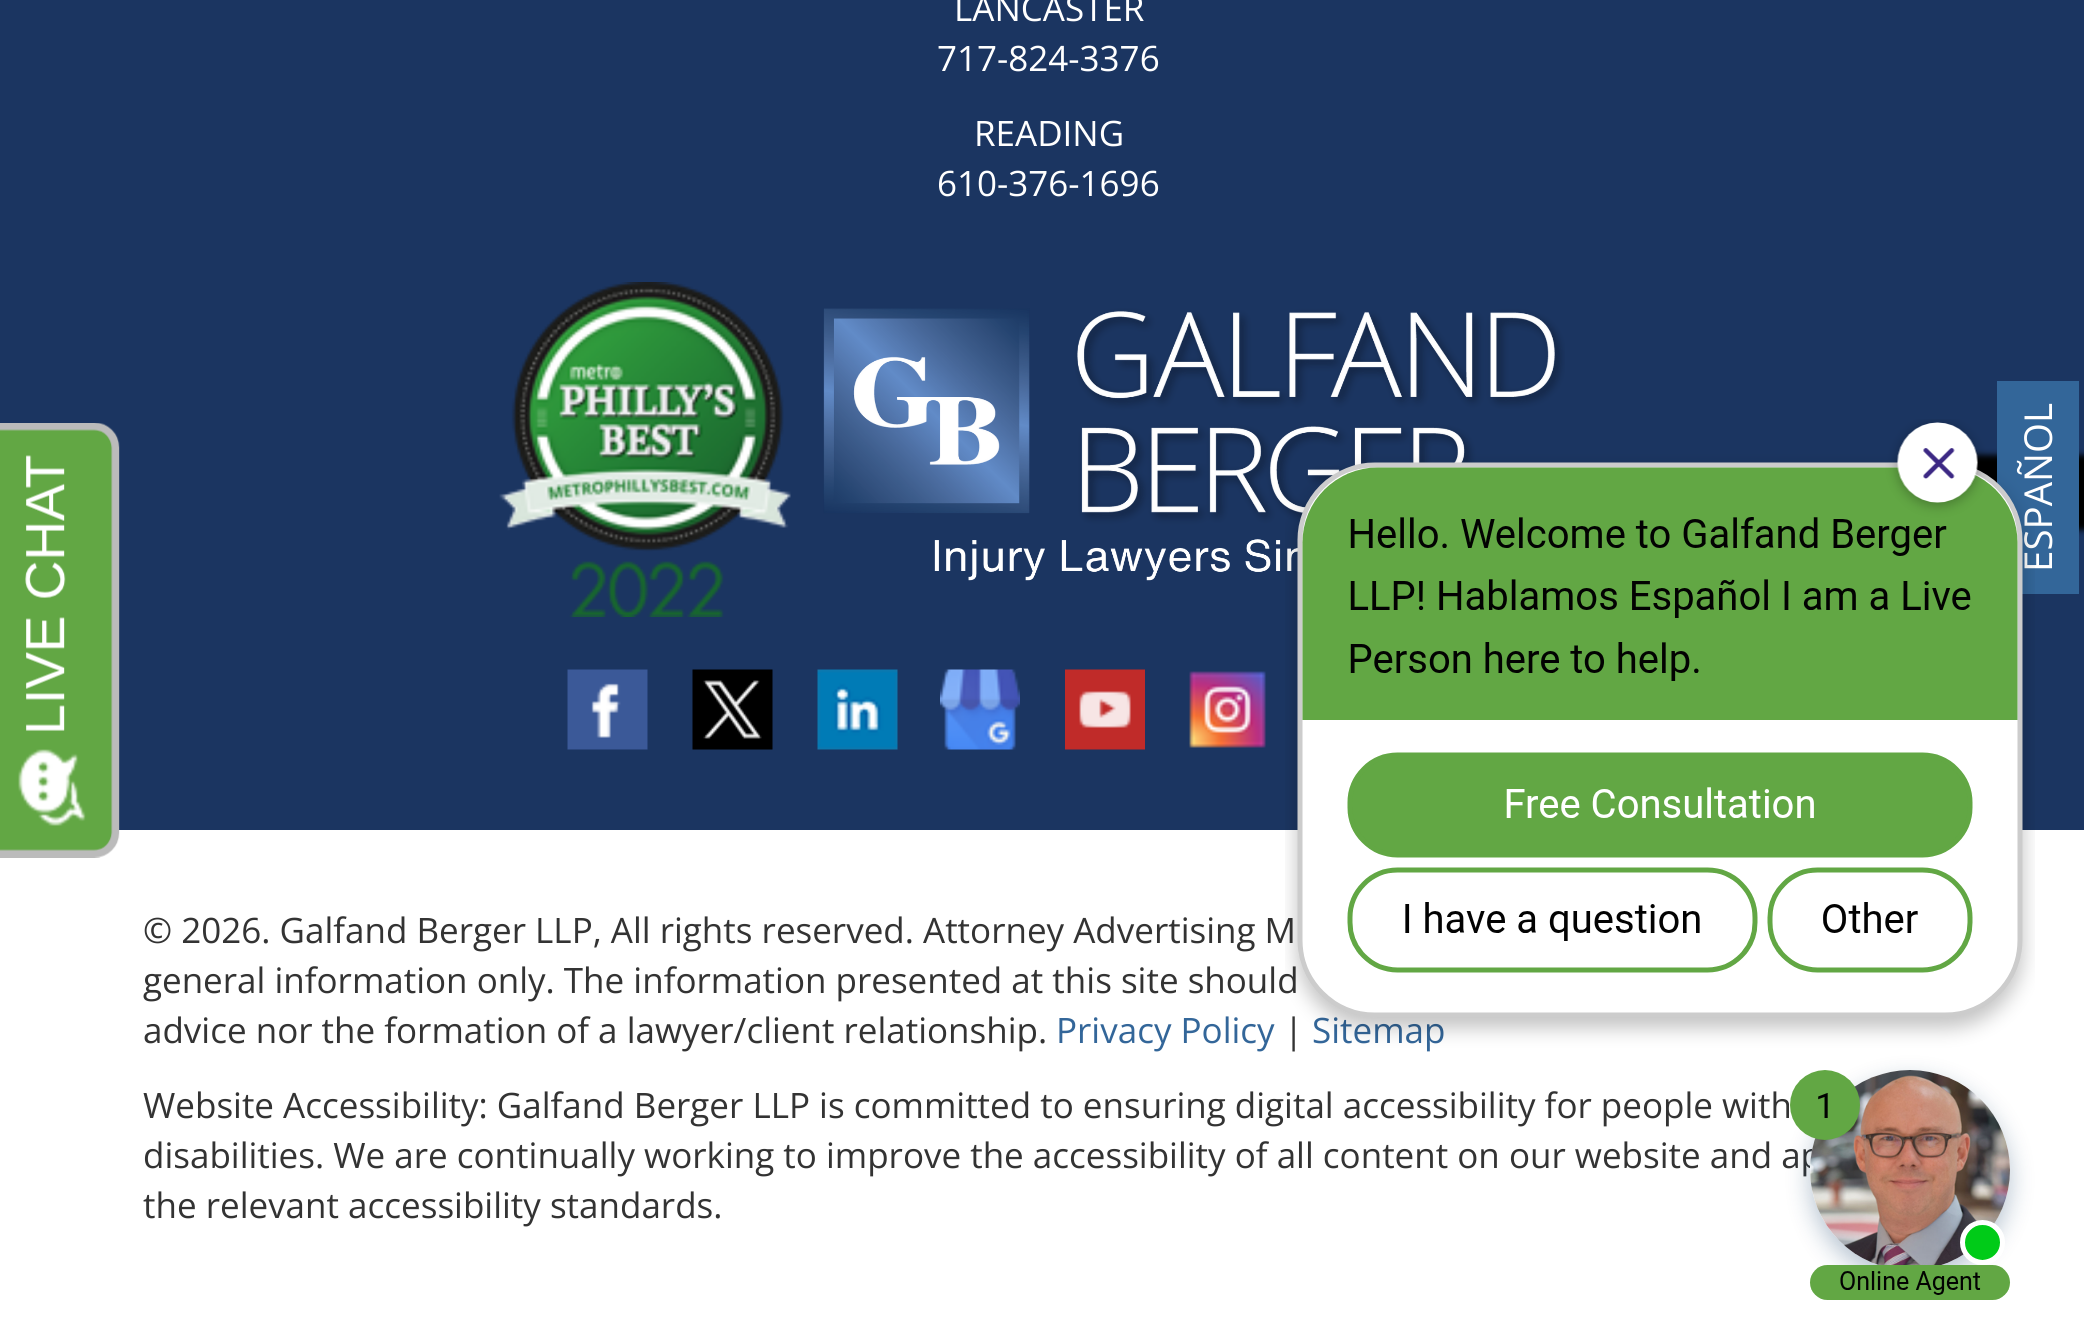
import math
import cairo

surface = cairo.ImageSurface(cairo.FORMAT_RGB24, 2084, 1329)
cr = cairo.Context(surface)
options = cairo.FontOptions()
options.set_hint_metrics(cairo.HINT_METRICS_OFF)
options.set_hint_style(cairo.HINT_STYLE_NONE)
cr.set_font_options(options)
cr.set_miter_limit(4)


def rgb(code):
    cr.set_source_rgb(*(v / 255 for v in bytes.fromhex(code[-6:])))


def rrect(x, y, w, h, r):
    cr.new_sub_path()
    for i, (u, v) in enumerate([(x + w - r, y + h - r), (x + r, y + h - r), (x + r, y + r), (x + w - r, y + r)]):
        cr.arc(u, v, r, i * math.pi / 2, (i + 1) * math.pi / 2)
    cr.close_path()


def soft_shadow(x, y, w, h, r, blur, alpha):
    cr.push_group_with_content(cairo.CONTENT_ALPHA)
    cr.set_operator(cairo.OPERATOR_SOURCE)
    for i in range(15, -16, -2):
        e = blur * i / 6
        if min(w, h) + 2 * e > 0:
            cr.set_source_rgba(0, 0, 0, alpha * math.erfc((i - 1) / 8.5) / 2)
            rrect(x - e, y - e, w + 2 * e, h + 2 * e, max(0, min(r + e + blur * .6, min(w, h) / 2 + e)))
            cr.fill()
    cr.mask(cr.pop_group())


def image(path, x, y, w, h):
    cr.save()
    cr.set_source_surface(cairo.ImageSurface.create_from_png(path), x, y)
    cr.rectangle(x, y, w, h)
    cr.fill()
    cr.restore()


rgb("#1b3561")
cr.paint()
image("img/1.png", 499, 282, 292, 335)
image("img/2.png", 823, 308, 742, 273)
image("img/3.png", 567, 669, 81, 81)
image("img/4.png", 692, 669, 81, 81)
image("img/5.png", 817, 669, 81, 81)
image("img/6.png", 940, 669, 80, 81)
image("img/7.png", 1065, 669, 80, 81)
image("img/8.png", 1189, 671, 77, 77)
rgb("#ffffff")
cr.rectangle(0, 830, 2084, 499)
cr.fill()
rgb("#000000")
soft_shadow(1940, 455, 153, 75, 0, 3, 1)
rgb("#336699")
cr.rectangle(1997, 381, 82, 213)
cr.fill()
image("img/9.png", 0, 423, 120, 435)
cr.select_font_face("Open Sans")
cr.set_font_size(35)
rgb("#ffffff")
for x, y, s in [
    (954, 21, "LANCASTER"),
    (937, 71, "717-824-3376"),
    (974, 146, "READING"),
    (937, 196, "610-376-1696"),
]:
    cr.move_to(x, y)
    cr.show_text(s)
rgb("#333333")
for x, y, s in [
    (143, 943, "© 2026. Galfand Berger LLP, All rights reserved. Attorney Advertising M"),
    (143, 993, "general information only. The information presented at this site should"),
    (143, 1043, "advice nor the formation of a lawyer/client relationship."),
]:
    cr.move_to(x, y)
    cr.show_text(s)
rgb("#336699")
cr.move_to(1056, 1043)
cr.show_text("Privacy Policy")
rgb("#333333")
cr.move_to(1284, 1043)
cr.show_text("|")
rgb("#336699")
cr.move_to(1312, 1043)
cr.show_text("Sitemap")
rgb("#333333")
for x, y, s in [
    (143, 1118, "Website Accessibility: Galfand Berger LLP is committed to ensuring digital accessibility for people with"),
    (143, 1168, "disabilities. We are continually working to improve the accessibility of all content on our website and ap"),
    (143, 1218, "the relevant accessibility standards."),
]:
    cr.move_to(x, y)
    cr.show_text(s)
cr.set_font_size(38.5)
rgb("#ffffff")
cr.save()
cr.translate(2052, 572)
cr.rotate(-90 * math.pi / 180)
cr.move_to(0, 0)
cr.show_text("ESPAÑOL")
cr.restore()
image("img/10.png", 1285, 419, 750, 881)
surface.write_to_png("page.png")
